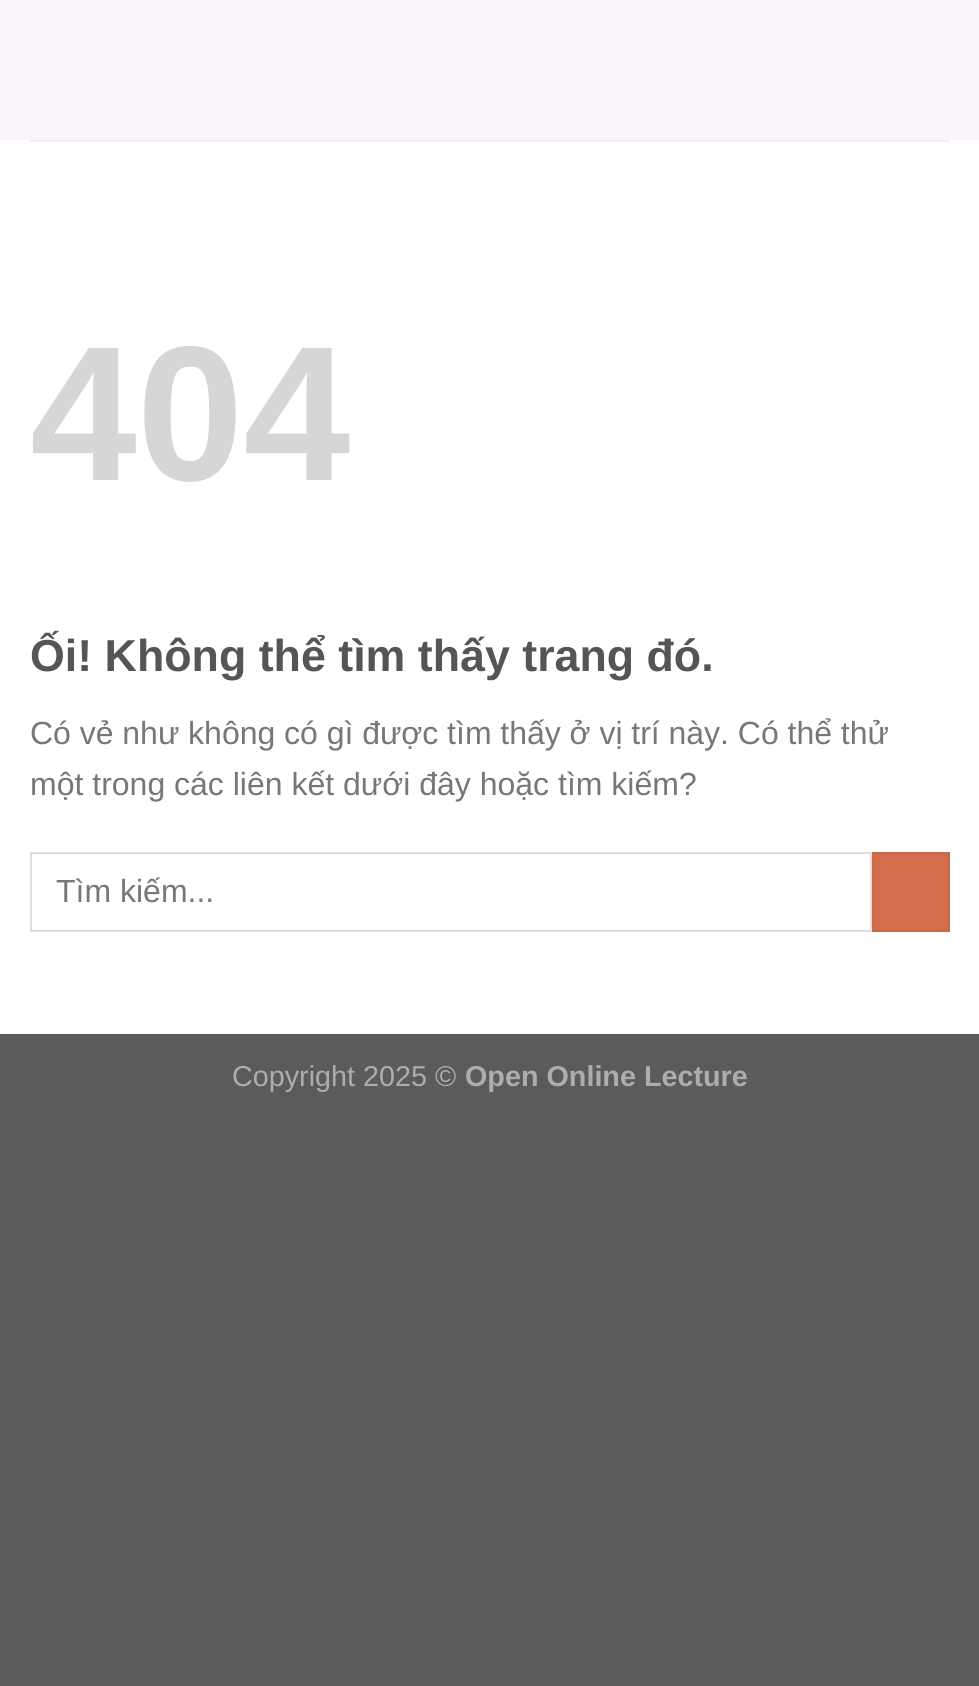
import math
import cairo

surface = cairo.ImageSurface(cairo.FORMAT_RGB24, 979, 1686)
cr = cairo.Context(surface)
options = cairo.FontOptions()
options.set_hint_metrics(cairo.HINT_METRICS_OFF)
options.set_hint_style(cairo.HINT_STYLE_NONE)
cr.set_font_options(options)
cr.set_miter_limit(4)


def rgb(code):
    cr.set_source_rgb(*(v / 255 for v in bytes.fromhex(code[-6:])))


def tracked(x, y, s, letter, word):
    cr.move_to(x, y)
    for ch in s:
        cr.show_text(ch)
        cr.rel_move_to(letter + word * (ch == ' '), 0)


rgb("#5b5b5b")
cr.paint()
for x, y, w, h, color in [
    (0, 140, 979, 894, "#ffffff"),
    (0, 0, 979, 140, "#f9f5fa"),
    (30, 140, 920, 2, "#f1f1f1"),
]:
    rgb(color)
    cr.rectangle(x, y, w, h)
    cr.fill()
cr.rectangle(31, 853, 840, 78)
rgb("#dddddd")
cr.stroke()
rgb("#d26e4b")
cr.rectangle(873, 853, 76, 78)
cr.fill_preserve()
rgb("#c86947")
cr.stroke()
cr.select_font_face("Liberation Sans", cairo.FONT_SLANT_NORMAL, cairo.FONT_WEIGHT_BOLD)
cr.set_font_size(192)
rgb("#d6d6d6")
cr.move_to(30, 480)
cr.show_text("404")
cr.set_font_size(44.75)
rgb("#555555")
cr.move_to(30, 671)
cr.show_text("Ối! Không thể tìm thấy trang đó.")
cr.select_font_face("Liberation Sans")
cr.set_font_size(32)
rgb("#777777")
tracked(30, 744, "Có vẻ như không có gì được tìm thấy ở vị trí này. Có thể thử", 0, -0.1)
cr.move_to(30, 795)
cr.show_text("một trong các liên kết dưới đây hoặc tìm kiếm?")
cr.move_to(56, 902)
cr.show_text("Tìm kiếm...")
cr.set_font_size(28.75)
rgb("#adadad")
cr.move_to(232, 1086)
cr.show_text("Copyright 2025 ©")
cr.select_font_face("Liberation Sans", cairo.FONT_SLANT_NORMAL, cairo.FONT_WEIGHT_BOLD)
cr.move_to(465, 1086)
cr.show_text("Open Online Lecture")
surface.write_to_png("page.png")
